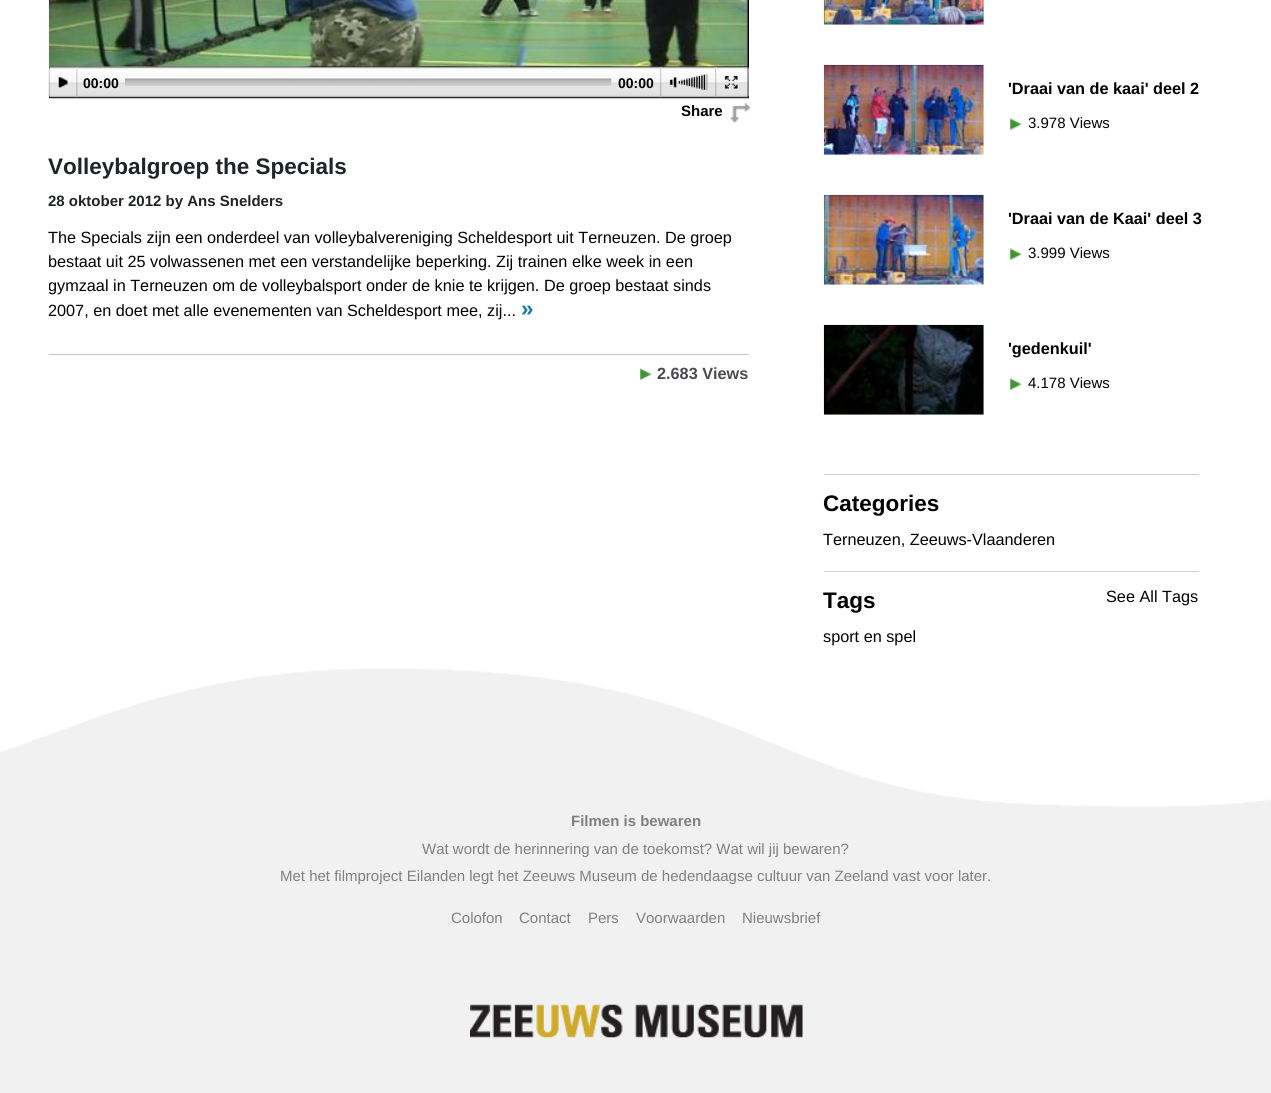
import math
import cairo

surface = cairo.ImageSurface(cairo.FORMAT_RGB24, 1271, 1093)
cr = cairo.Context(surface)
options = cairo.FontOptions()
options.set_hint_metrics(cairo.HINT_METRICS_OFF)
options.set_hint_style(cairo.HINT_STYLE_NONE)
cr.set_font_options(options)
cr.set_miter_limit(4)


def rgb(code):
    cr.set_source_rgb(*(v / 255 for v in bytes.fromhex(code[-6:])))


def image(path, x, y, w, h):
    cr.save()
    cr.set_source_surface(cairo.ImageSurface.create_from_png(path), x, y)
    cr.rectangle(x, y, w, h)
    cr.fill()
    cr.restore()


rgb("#ffffff")
cr.paint()
rgb("#000000")
cr.rectangle(49, 0, 700, 98)
cr.fill()
image("img/1.png", 48, 0, 701, 68)
image("img/2.png", 48, 67, 2, 31)
image("img/3.png", 50, 67, 698, 31)
image("img/4.png", 58, 77, 10, 11)
image("img/5.png", 76, 67, 2, 31)
image("img/6.png", 125, 78, 487, 8)
image("img/7.png", 660, 67, 2, 31)
image("img/8.png", 669, 77, 8, 11)
image("img/9.png", 678, 73, 30, 18)
image("img/10.png", 678, 74, 28, 16)
image("img/11.png", 715, 67, 2, 31)
image("img/12.png", 724, 75, 14, 14)
image("img/13.png", 747, 67, 2, 31)
rgb("#c6c6c6")
cr.rectangle(49, 98, 700, 1)
cr.fill()
image("img/14.png", 730, 102, 21, 22)
cr.rectangle(49, 354, 700, 1)
cr.fill()
image("img/15.png", 640, 368, 12, 12)
image("img/16.png", 823, 0, 161, 25)
image("img/17.png", 823, 64, 161, 91)
image("img/15.png", 1010, 118, 12, 12)
image("img/18.png", 823, 194, 161, 91)
image("img/15.png", 1010, 248, 12, 12)
image("img/19.png", 823, 324, 161, 91)
image("img/15.png", 1010, 378, 12, 12)
for x, y, w, h, color in [
    (824, 474, 375, 1, "#cdd2d5"),
    (824, 571, 375, 1, "#cdd2d5"),
    (0, 668, 1271, 425, "#f1f1f2"),
]:
    rgb(color)
    cr.rectangle(x, y, w, h)
    cr.fill()
image("img/20.png", 0, 668, 1271, 139)
image("img/21.png", 470, 1004, 333, 34)
cr.select_font_face("Liberation Sans", cairo.FONT_SLANT_NORMAL, cairo.FONT_WEIGHT_BOLD)
cr.set_font_size(14)
rgb("#000000")
cr.move_to(83, 88)
cr.show_text("00:00")
cr.move_to(618, 88)
cr.show_text("00:00")
cr.set_font_size(15)
cr.move_to(681, 116)
cr.show_text("Share")
cr.set_font_size(22.5)
rgb("#202327")
cr.move_to(48, 174)
cr.show_text("Volleybalgroep the Specials")
cr.set_font_size(15)
cr.move_to(48, 206)
cr.show_text("28 oktober 2012 by Ans Snelders")
cr.select_font_face("Liberation Sans")
cr.set_font_size(16.25)
rgb("#000000")
cr.move_to(48, 243)
cr.show_text("The Specials zijn een onderdeel van volleybalvereniging Scheldesport uit Terneuzen. De groep")
cr.move_to(48, 267)
cr.show_text("bestaat uit 25 volwassenen met een verstandelijke beperking. Zij trainen elke week in een")
cr.save()
cr.rectangle(49, 225, 700, 110)
cr.clip()
cr.move_to(48, 291)
cr.show_text("gymzaal in Terneuzen om de volleybalsport onder de knie te krijgen. De groep bestaat sinds")
cr.restore()
cr.move_to(48, 316)
cr.show_text("2007, en doet met alle evenementen van Scheldesport mee, zij...")
cr.select_font_face("Liberation Sans", cairo.FONT_SLANT_NORMAL, cairo.FONT_WEIGHT_BOLD)
cr.set_font_size(22.5)
rgb("#0f7cb4")
cr.move_to(521, 316)
cr.show_text("»")
cr.set_font_size(16.25)
rgb("#494b4e")
cr.move_to(657, 379)
cr.show_text("2.683 Views")
rgb("#000000")
cr.move_to(1008, 94)
cr.show_text("'Draai van de kaai' deel 2")
cr.select_font_face("Liberation Sans")
cr.set_font_size(15)
cr.move_to(1028, 128)
cr.show_text("3.978 Views")
cr.select_font_face("Liberation Sans", cairo.FONT_SLANT_NORMAL, cairo.FONT_WEIGHT_BOLD)
cr.set_font_size(16.25)
cr.move_to(1008, 224)
cr.show_text("'Draai van de Kaai' deel 3")
cr.select_font_face("Liberation Sans")
cr.set_font_size(15)
cr.move_to(1028, 258)
cr.show_text("3.999 Views")
cr.select_font_face("Liberation Sans", cairo.FONT_SLANT_NORMAL, cairo.FONT_WEIGHT_BOLD)
cr.set_font_size(16.25)
cr.move_to(1008, 354)
cr.show_text("'gedenkuil'")
cr.select_font_face("Liberation Sans")
cr.set_font_size(15)
cr.move_to(1028, 388)
cr.show_text("4.178 Views")
cr.select_font_face("Liberation Sans", cairo.FONT_SLANT_NORMAL, cairo.FONT_WEIGHT_BOLD)
cr.set_font_size(22.5)
cr.move_to(823, 511)
cr.show_text("Categories")
cr.select_font_face("Liberation Sans")
cr.set_font_size(16.25)
cr.move_to(823, 545)
cr.show_text("Terneuzen, Zeeuws-Vlaanderen")
cr.select_font_face("Liberation Sans", cairo.FONT_SLANT_NORMAL, cairo.FONT_WEIGHT_BOLD)
cr.set_font_size(22.5)
cr.move_to(823, 608)
cr.show_text("Tags")
cr.select_font_face("Liberation Sans")
cr.set_font_size(16.25)
cr.move_to(1106, 602)
cr.show_text("See All Tags")
cr.move_to(823, 642)
cr.show_text("sport en spel")
cr.select_font_face("Liberation Sans", cairo.FONT_SLANT_NORMAL, cairo.FONT_WEIGHT_BOLD)
cr.set_font_size(15)
rgb("#808080")
cr.move_to(571, 826)
cr.show_text("Filmen is bewaren")
cr.select_font_face("Liberation Sans")
for x, y, s in [
    (422, 854, "Wat wordt de herinnering van de toekomst? Wat wil jij bewaren?"),
    (280, 881, "Met het filmproject Eilanden legt het Zeeuws Museum de hedendaagse cultuur van Zeeland vast voor later."),
    (451, 923, "Colofon"),
    (519, 923, "Contact"),
    (588, 923, "Pers"),
    (636, 923, "Voorwaarden"),
    (742, 923, "Nieuwsbrief"),
]:
    cr.move_to(x, y)
    cr.show_text(s)
surface.write_to_png("page.png")
